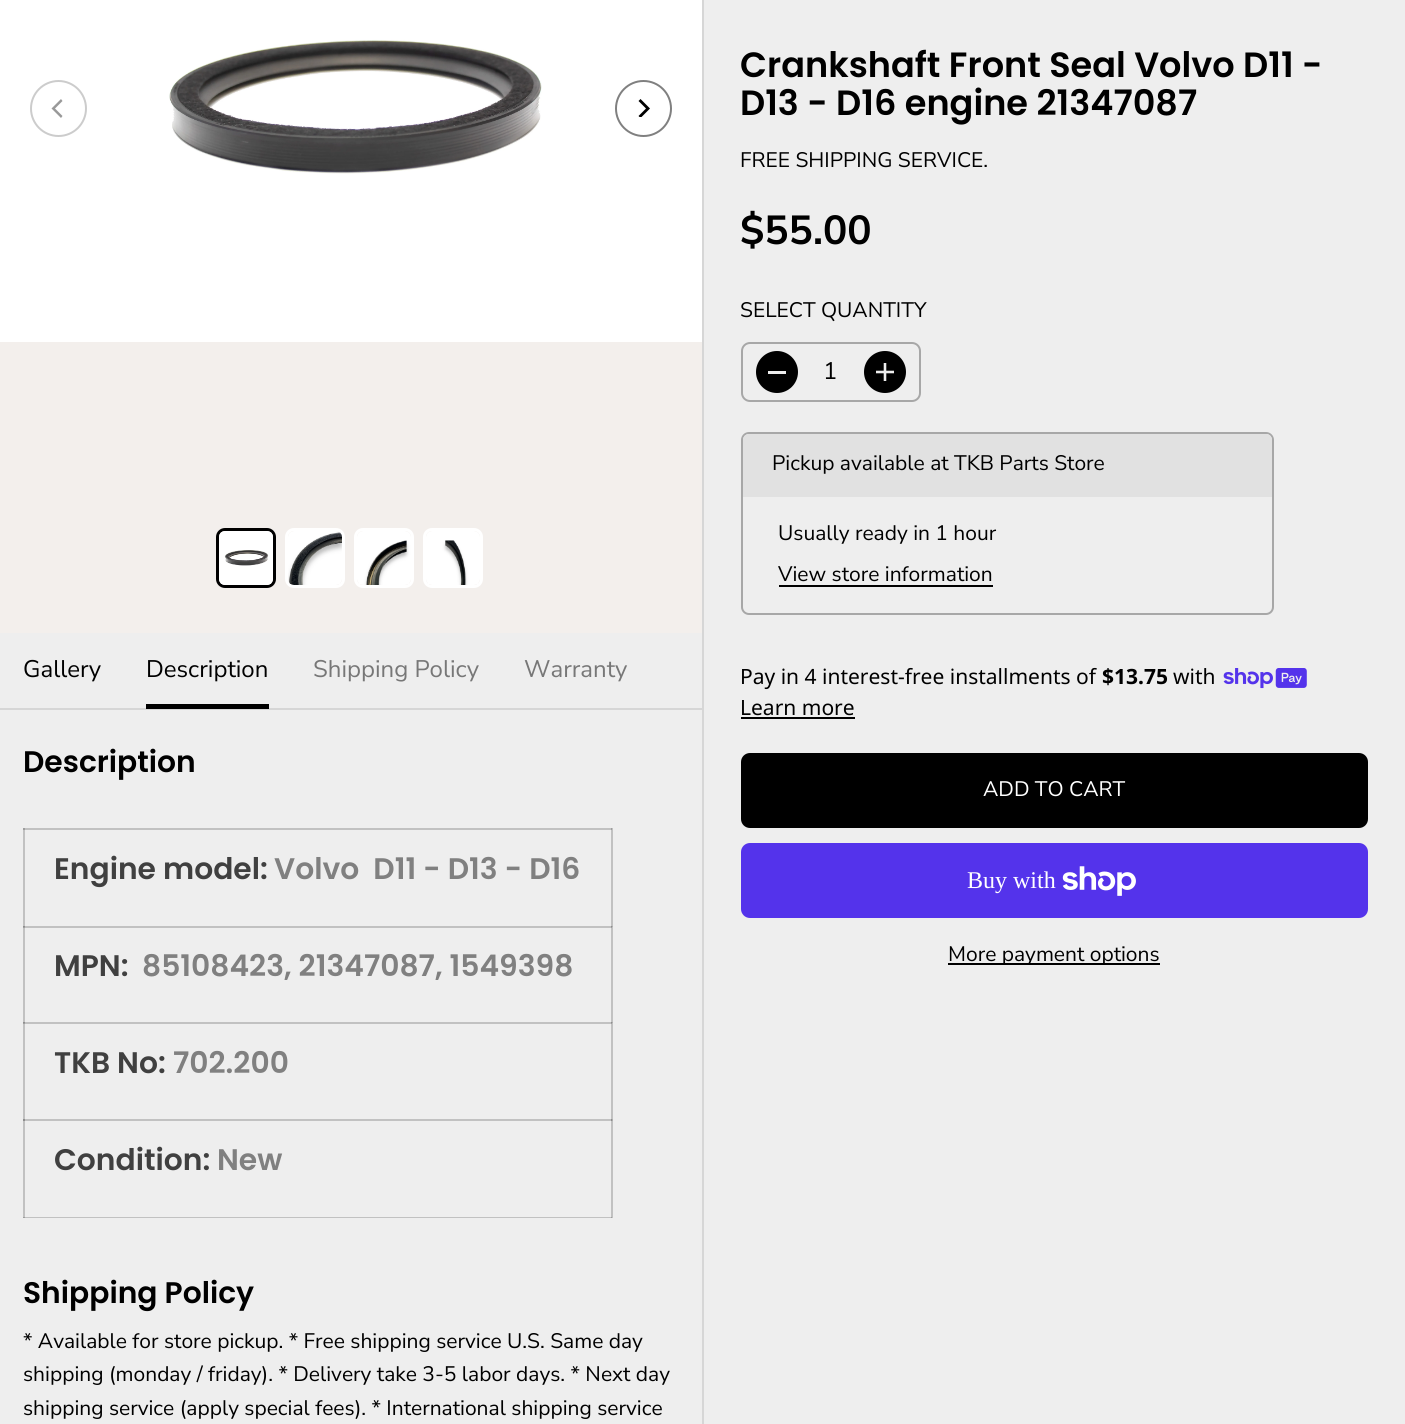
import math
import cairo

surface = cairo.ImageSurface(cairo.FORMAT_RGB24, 1405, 1424)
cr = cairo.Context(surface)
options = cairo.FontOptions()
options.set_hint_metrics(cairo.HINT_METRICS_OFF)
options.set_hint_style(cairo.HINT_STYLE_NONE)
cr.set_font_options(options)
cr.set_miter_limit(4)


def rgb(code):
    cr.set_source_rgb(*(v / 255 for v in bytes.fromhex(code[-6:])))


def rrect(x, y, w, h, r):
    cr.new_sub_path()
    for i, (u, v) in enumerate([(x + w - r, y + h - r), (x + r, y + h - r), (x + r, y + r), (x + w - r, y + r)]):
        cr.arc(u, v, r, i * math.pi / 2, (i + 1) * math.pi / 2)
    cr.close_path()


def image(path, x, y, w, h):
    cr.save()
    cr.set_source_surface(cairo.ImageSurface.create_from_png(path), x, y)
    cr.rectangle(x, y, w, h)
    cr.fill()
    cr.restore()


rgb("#eeeeee")
cr.paint()
for x, y, w, h, color in [
    (23, 926, 589, 2, "#c1c1c1"),
    (23, 1022, 589, 2, "#c1c1c1"),
    (23, 1119, 589, 2, "#c1c1c1"),
    (23, 828, 2, 390, "#c1c1c1"),
    (23, 927, 2, 1, "#9d9d9d"),
    (23, 926, 2, 1, "#8d8d8d"),
    (23, 1023, 2, 1, "#9d9d9d"),
    (23, 1022, 2, 1, "#8d8d8d"),
    (23, 1119, 2, 2, "#8d8d8d"),
    (23, 1217, 589, 1, "#c1c1c1"),
    (23, 1217, 2, 1, "#9d9d9d"),
    (611, 828, 2, 390, "#c1c1c1"),
    (611, 926, 2, 1, "#aeaeae"),
    (611, 926, 1, 2, "#9d9d9d"),
    (611, 926, 1, 1, "#8d8d8d"),
    (611, 1022, 2, 1, "#aeaeae"),
    (611, 1022, 1, 2, "#9d9d9d"),
    (611, 1022, 1, 1, "#8d8d8d"),
    (611, 1119, 2, 2, "#aeaeae"),
    (611, 1119, 1, 2, "#8d8d8d"),
    (611, 1217, 1, 1, "#9d9d9d"),
    (702, 0, 2, 1424, "#d6d6d6"),
    (0, 342, 702, 291, "#f3efec"),
]:
    rgb(color)
    cr.rectangle(x, y, w, h)
    cr.fill()
image("img/1.png", 0, 0, 702, 342)
cr.arc(58.5, 108.5, 27.5, 0, 2 * math.pi)
rgb("#cccccc")
cr.stroke()
rgb("#999999")
cr.new_path()
cr.move_to(51.5, 108.5)
cr.line_to(61, 118)
cr.line_to(62.5, 116)
cr.line_to(55, 108.5)
cr.line_to(62.5, 101)
cr.line_to(61, 99)
cr.close_path()
cr.fill()
cr.arc(643.5, 108.5, 27.5, 0, 2 * math.pi)
rgb("#808080")
cr.stroke()
cr.save()
cr.rectangle(633, 99, 20, 18)
cr.clip()
rgb("#000000")
cr.new_path()
cr.move_to(650, 108.5)
cr.line_to(640.5, 99)
cr.line_to(638.5, 101)
cr.line_to(646, 108.5)
cr.line_to(638.5, 116)
cr.line_to(640.5, 118)
cr.close_path()
cr.fill()
cr.restore()
rrect(217.5, 529.5, 57, 57, 7.5)
rgb("#000000")
cr.set_line_width(3)
cr.stroke()
image("img/2.png", 219, 531, 54, 54)
rrect(286.5, 529.5, 57, 57, 7.5)
rgb("#ffffff")
cr.stroke()
image("img/3.png", 288, 531, 54, 54)
rrect(355.5, 529.5, 57, 57, 7.5)
cr.stroke()
image("img/4.png", 357, 531, 54, 54)
rrect(424.5, 529.5, 57, 57, 7.5)
cr.stroke()
image("img/5.png", 426, 531, 54, 54)
for x, y, w, h, color in [
    (0, 708, 702, 2, "#d6d6d6"),
    (146, 704, 123, 5, "#000000"),
    (23, 828, 589, 2, "#c1c1c1"),
    (23, 828, 2, 2, "#9d9d9d"),
    (611, 828, 1, 2, "#9d9d9d"),
]:
    rgb(color)
    cr.rectangle(x, y, w, h)
    cr.fill()
rrect(742, 343, 178, 58, 8)
rgb("#a7a7a7")
cr.set_line_width(2)
cr.stroke()
rgb("#000000")
cr.arc(777, 372, 21, 0, 2 * math.pi)
cr.fill()
rgb("#eeeeee")
cr.rectangle(768, 371, 18, 3)
cr.fill()
rgb("#000000")
cr.arc(885, 372, 21, 0, 2 * math.pi)
cr.fill()
image("img/6.png", 876, 363, 18, 18)
rrect(742, 433, 531, 181, 7)
rgb("#a7a7a7")
cr.stroke()
rgb("#e1e1e1")
cr.new_path()
cr.move_to(749, 434)
cr.line_to(1266, 434)
cr.curve_to(1269.5, 434, 1272, 436.5, 1272, 440)
cr.line_to(1272, 497)
cr.line_to(743, 497)
cr.line_to(743, 440)
cr.curve_to(743, 436.5, 745.5, 434, 749, 434)
cr.close_path()
cr.fill()
rgb("#000000")
cr.rectangle(779, 585, 214, 2)
cr.fill()
image("img/7.png", 1223, 668, 84, 21)
cr.rectangle(741, 717, 114, 2)
cr.fill()
rrect(742, 754, 625, 73, 8)
cr.fill_preserve()
cr.stroke()
rgb("#5433eb")
rrect(741, 843, 627, 75, 9)
cr.fill()
image("img/8.png", 1062, 866, 74, 30)
rgb("#000000")
cr.rectangle(948, 963, 212, 2)
cr.fill()
cr.select_font_face("Nunito Sans")
cr.set_font_size(24)
cr.move_to(23, 677)
cr.show_text("Gallery")
cr.move_to(146, 677)
cr.show_text("Description")
rgb("#777777")
cr.move_to(313, 677)
cr.show_text("Shipping Policy")
cr.move_to(524, 677)
cr.show_text("Warranty")
cr.select_font_face("Poppins SemiBold")
cr.set_font_size(29.75)
rgb("#000000")
cr.move_to(23, 772)
cr.show_text("Description")
rgb("#404040")
cr.move_to(54, 879)
cr.show_text("Engine model:")
rgb("#808080")
cr.move_to(274, 879)
cr.show_text("Volvo  D11 - D13 - D16")
rgb("#404040")
cr.move_to(54, 976)
cr.show_text("MPN:")
rgb("#808080")
cr.move_to(142, 976)
cr.show_text("85108423, 21347087, 1549398")
rgb("#404040")
cr.move_to(54, 1073)
cr.show_text("TKB No:")
rgb("#808080")
cr.move_to(173, 1073)
cr.show_text("702.200")
rgb("#404040")
cr.move_to(54, 1170)
cr.show_text("Condition:")
rgb("#808080")
cr.move_to(217, 1170)
cr.show_text("New")
rgb("#000000")
cr.move_to(23, 1303)
cr.show_text("Shipping Policy")
cr.select_font_face("Nunito Sans")
cr.set_font_size(21)
for x, y, s in [
    (23, 1348, "* Available for store pickup. * Free shipping service U.S. Same day"),
    (23, 1381, "shipping (monday / friday). * Delivery take 3-5 labor days. * Next day"),
    (23, 1415, "shipping service (apply special fees). * International shipping service"),
]:
    cr.move_to(x, y)
    cr.show_text(s)
cr.select_font_face("Poppins SemiBold")
cr.set_font_size(35.1)
cr.move_to(740, 77)
cr.show_text("Crankshaft Front Seal Volvo D11 -")
cr.move_to(740, 115)
cr.show_text("D13 - D16 engine 21347087")
cr.select_font_face("Nunito Sans")
cr.set_font_size(21)
cr.move_to(740, 167)
cr.show_text("FREE SHIPPING SERVICE.")
cr.select_font_face("Nunito Sans", cairo.FONT_SLANT_NORMAL, cairo.FONT_WEIGHT_BOLD)
cr.set_font_size(40.5)
cr.move_to(740, 244)
cr.show_text("$55.00")
cr.select_font_face("Nunito Sans")
cr.set_font_size(21)
cr.move_to(740, 317)
cr.show_text("SELECT QUANTITY")
cr.set_font_size(24)
cr.move_to(823, 379)
cr.show_text("1")
cr.set_font_size(21)
for x, y, s in [
    (772, 470, "Pickup available at TKB Parts Store"),
    (778, 540, "Usually ready in 1 hour"),
    (778, 581, "View store information"),
]:
    cr.move_to(x, y)
    cr.show_text(s)
cr.select_font_face("Noto Sans")
cr.move_to(740, 684)
cr.show_text("Pay in 4 interest-free installments of")
cr.select_font_face("Noto Sans", cairo.FONT_SLANT_NORMAL, cairo.FONT_WEIGHT_BOLD)
cr.move_to(1102, 684)
cr.show_text("$13.75")
cr.select_font_face("Noto Sans")
cr.move_to(1173, 684)
cr.show_text("with")
cr.move_to(740, 715)
cr.show_text("Learn more")
cr.select_font_face("Nunito Sans")
rgb("#ffffff")
cr.move_to(983, 796)
cr.show_text("ADD TO CART")
cr.select_font_face("Liberation Serif")
cr.set_font_size(24)
cr.move_to(967, 888)
cr.show_text("Buy with")
cr.select_font_face("Nunito Sans")
cr.set_font_size(21)
rgb("#000000")
cr.move_to(948, 961)
cr.show_text("More payment options")
surface.write_to_png("page.png")
